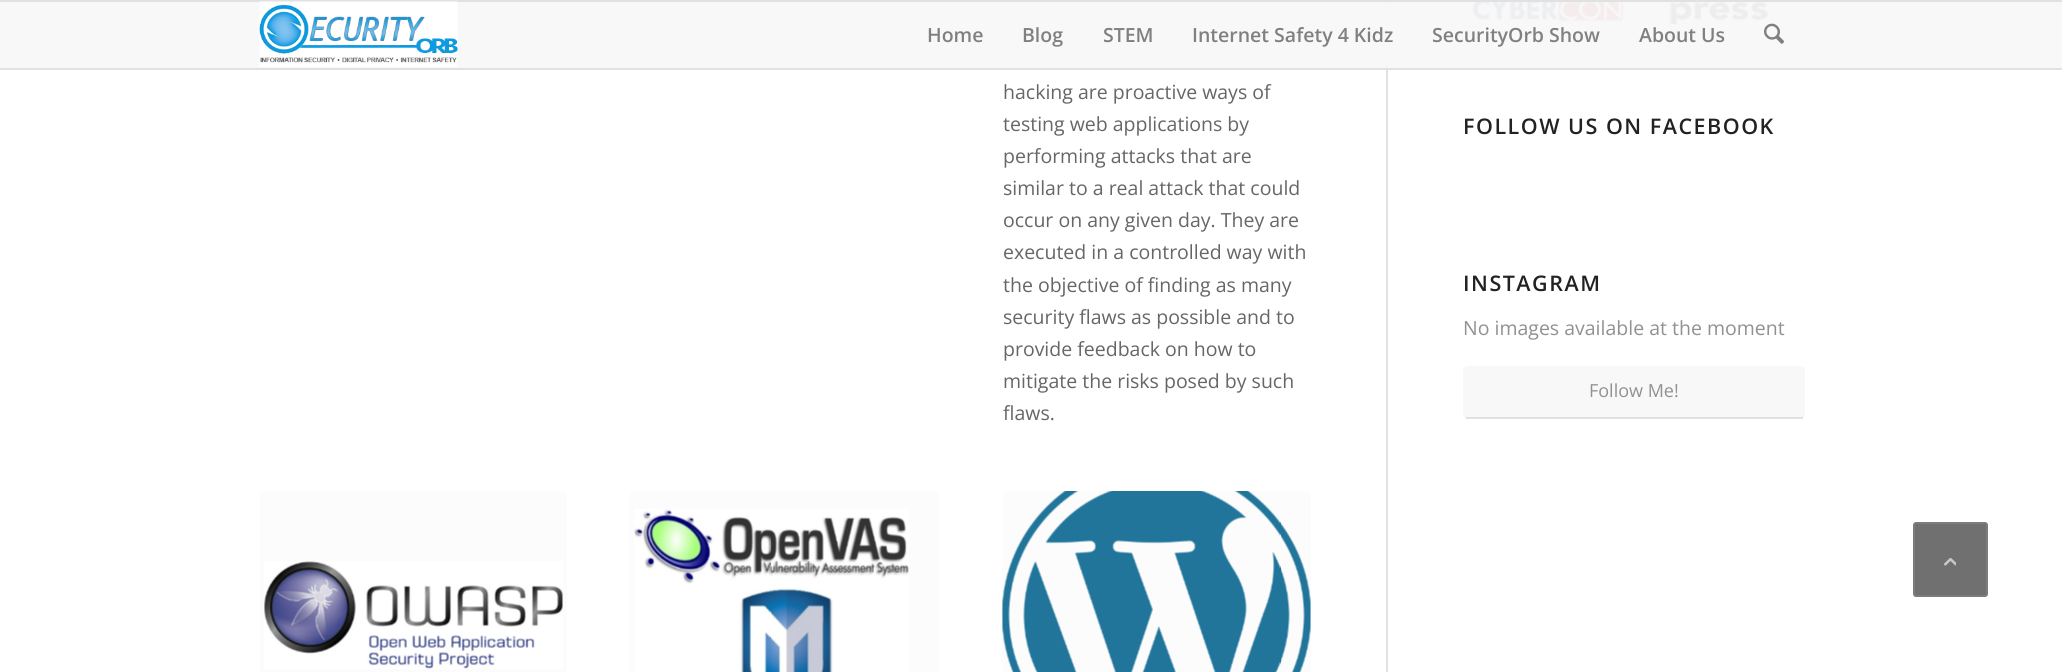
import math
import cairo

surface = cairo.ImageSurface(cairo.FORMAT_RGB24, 2062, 672)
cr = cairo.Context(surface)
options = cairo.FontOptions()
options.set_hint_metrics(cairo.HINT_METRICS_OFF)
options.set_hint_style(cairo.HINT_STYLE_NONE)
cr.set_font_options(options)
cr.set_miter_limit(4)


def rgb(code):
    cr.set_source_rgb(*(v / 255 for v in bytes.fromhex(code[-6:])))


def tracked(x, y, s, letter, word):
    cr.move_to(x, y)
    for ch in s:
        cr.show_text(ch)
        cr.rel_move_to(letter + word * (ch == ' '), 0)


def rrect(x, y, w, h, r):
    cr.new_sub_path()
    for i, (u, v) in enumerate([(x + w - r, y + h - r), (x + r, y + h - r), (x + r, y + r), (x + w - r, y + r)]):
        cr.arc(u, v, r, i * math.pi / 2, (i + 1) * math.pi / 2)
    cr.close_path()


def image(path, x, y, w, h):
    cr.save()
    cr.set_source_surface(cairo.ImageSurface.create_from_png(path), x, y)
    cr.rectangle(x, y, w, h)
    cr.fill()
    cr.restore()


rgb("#ffffff")
cr.paint()
rgb("#e1e1e1")
cr.rectangle(1386, 0, 2, 672)
cr.fill()
image("img/6.png", 1471, 2, 153, 20)
image("img/7.png", 1669, 2, 103, 22)
cr.set_source_rgba(0.973, 0.973, 0.973, 0.95)
cr.rectangle(0, 2, 2062, 66)
cr.fill()
rgb("#e1e1e1")
cr.rectangle(0, 0, 2062, 2)
cr.rectangle(0, 68, 2062, 2)
cr.fill()
image("img/1.png", 259, 1, 199, 66)
image("img/2.png", 1764, 23, 21, 21)
rgb("#fcfcfc")
rrect(260, 491, 307, 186, 5)
cr.fill()
image("img/3.png", 264, 561, 299, 108)
rrect(630, 491, 309, 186, 5)
cr.fill()
image("img/4.png", 634, 509, 275, 163)
rrect(1002, 491, 309, 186, 5)
cr.fill()
image("img/5.png", 1001, 491, 310, 181)
rgb("#f8f8f8")
rrect(1463, 366, 342, 53, 5)
cr.fill()
rgb("#e1e1e1")
cr.rectangle(1466, 417, 337, 2)
cr.fill()
rgb("#707070")
rrect(1914, 523, 73, 73, 2)
cr.fill_preserve()
rgb("#7c7c7c")
cr.stroke()
image("img/8.png", 1944, 558, 12, 8)
cr.select_font_face("Open Sans SemiBold")
cr.set_font_size(19.5)
rgb("#808080")
for x, y, s in [
    (927, 42, "Home"),
    (1022, 42, "Blog"),
    (1103, 42, "STEM"),
    (1192, 42, "Internet Safety 4 Kidz"),
    (1432, 42, "SecurityOrb Show"),
    (1639, 42, "About Us"),
]:
    cr.move_to(x, y)
    cr.show_text(s)
cr.select_font_face("Open Sans")
rgb("#666666")
for x, y, s in [
    (1003, 99, "hacking are proactive ways of"),
    (1003, 131, "testing web applications by"),
    (1003, 163, "performing attacks that are"),
    (1003, 195, "similar to a real attack that could"),
    (1003, 227, "occur on any given day. They are"),
    (1003, 259, "executed in a controlled way with"),
    (1003, 292, "the objective of finding as many"),
    (1003, 324, "security flaws as possible and to"),
    (1003, 356, "provide feedback on how to"),
    (1003, 388, "mitigate the risks posed by such"),
    (1003, 420, "flaws."),
]:
    cr.move_to(x, y)
    cr.show_text(s)
cr.select_font_face("Open Sans SemiBold")
cr.set_font_size(21.5)
rgb("#222222")
tracked(1463, 134, "FOLLOW US ON FACEBOOK", 1.5, 0)
tracked(1463, 291, "INSTAGRAM", 1.5, 0)
cr.select_font_face("Open Sans")
cr.set_font_size(19.5)
rgb("#919191")
cr.move_to(1463, 335)
cr.show_text("No images available at the moment")
cr.set_font_size(18)
cr.move_to(1589, 397)
cr.show_text("Follow Me!")
surface.write_to_png("page.png")
